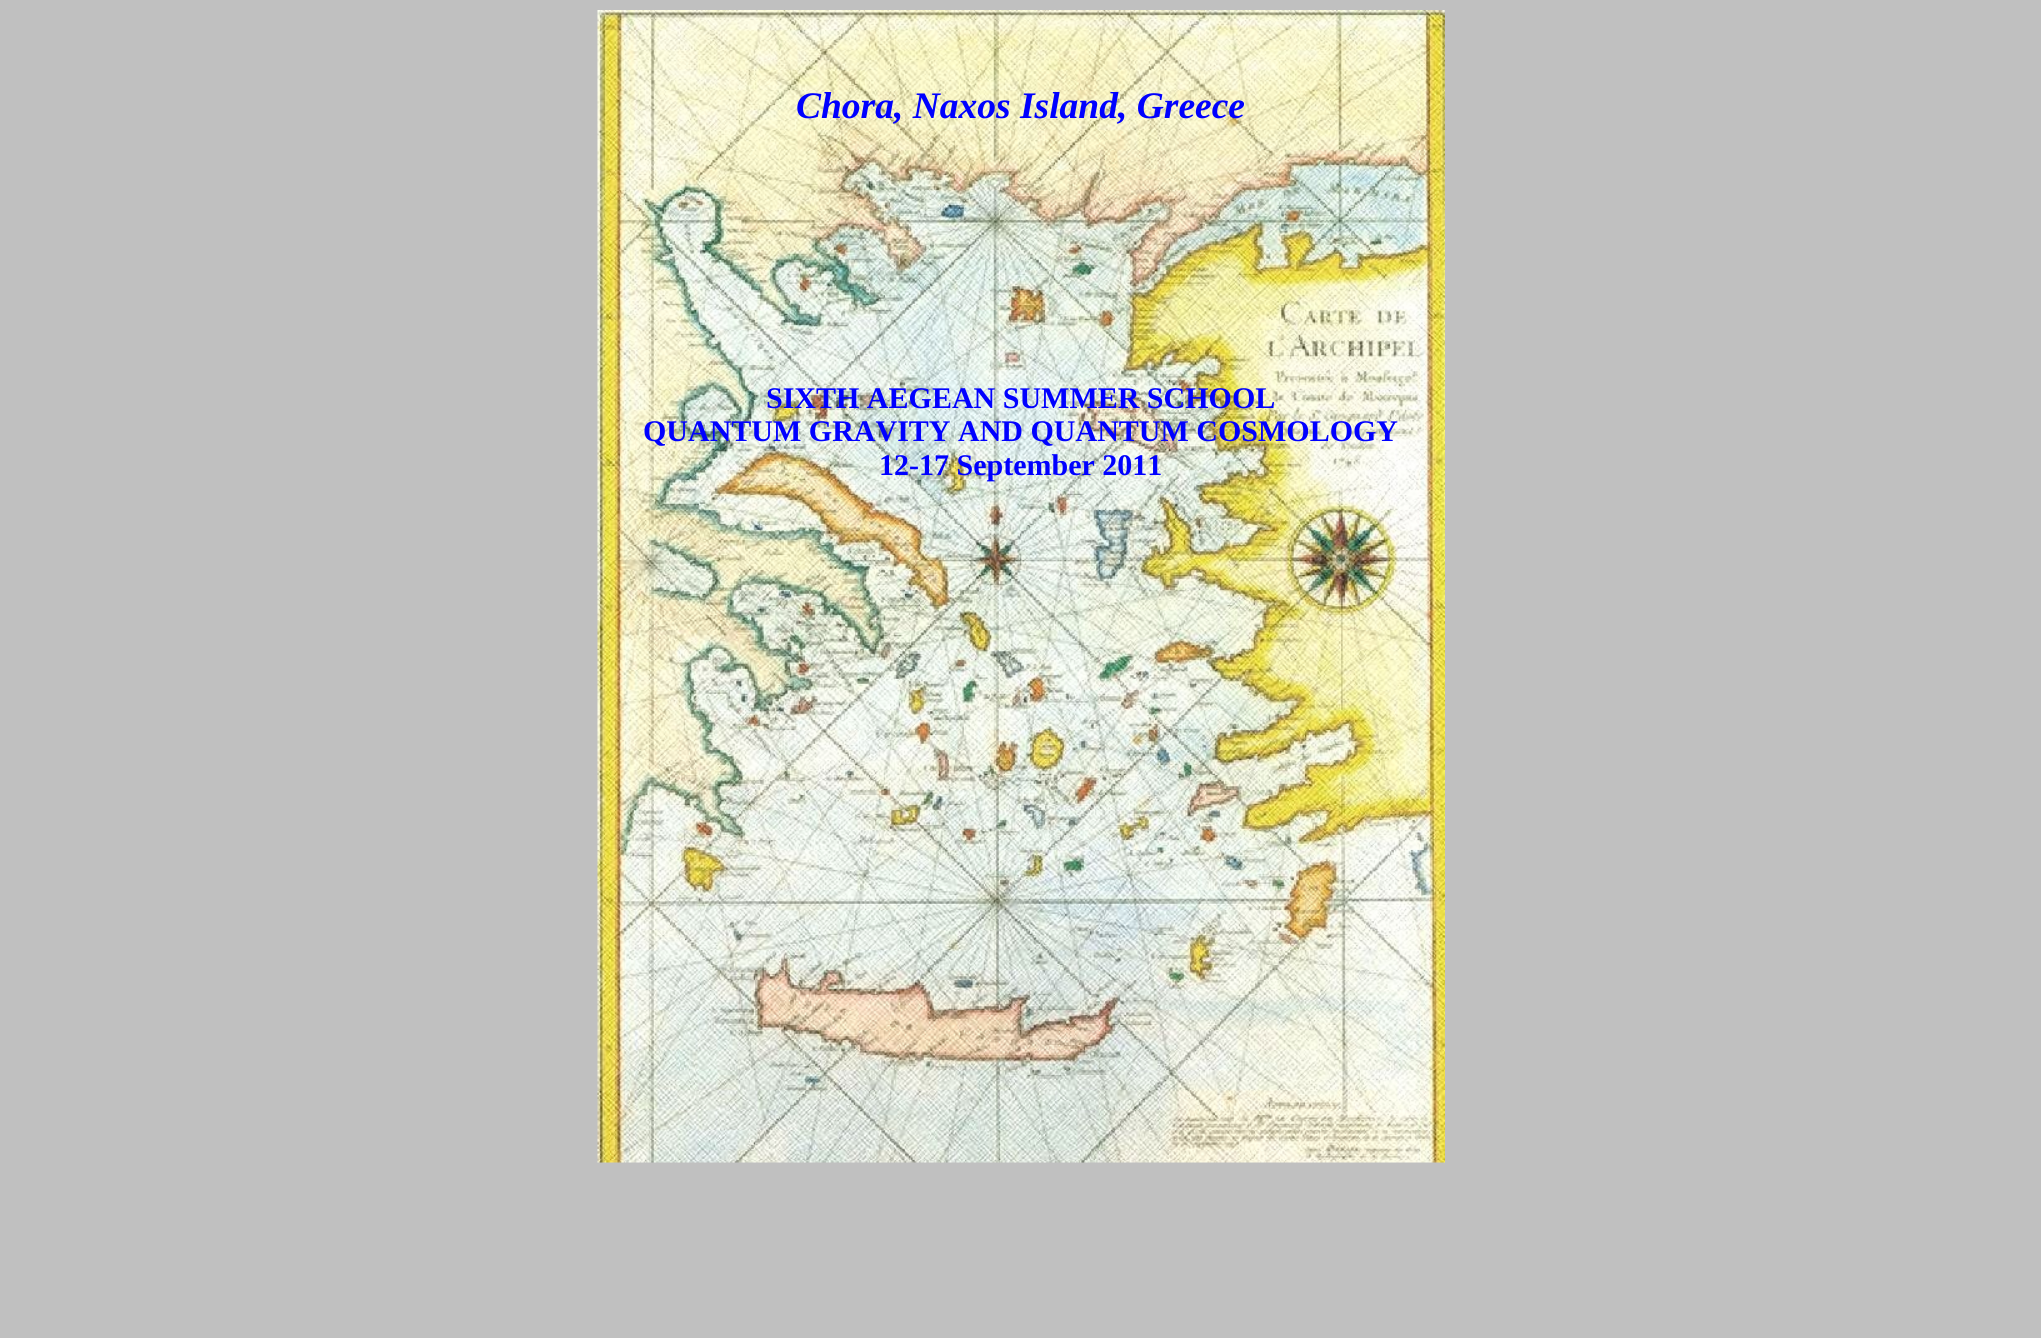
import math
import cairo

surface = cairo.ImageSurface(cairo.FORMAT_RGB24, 2041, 1338)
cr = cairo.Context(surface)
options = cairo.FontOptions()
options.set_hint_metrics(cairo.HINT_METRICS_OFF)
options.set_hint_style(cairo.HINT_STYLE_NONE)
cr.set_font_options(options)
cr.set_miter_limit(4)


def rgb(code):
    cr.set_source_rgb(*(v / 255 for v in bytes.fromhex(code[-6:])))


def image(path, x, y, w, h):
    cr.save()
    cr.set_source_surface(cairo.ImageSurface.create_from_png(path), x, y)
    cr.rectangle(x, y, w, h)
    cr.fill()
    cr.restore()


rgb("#c0c0c0")
cr.paint()
image("img/1.png", 597, 10, 848, 1153)
cr.select_font_face("Liberation Serif", cairo.FONT_SLANT_ITALIC, cairo.FONT_WEIGHT_BOLD)
cr.set_font_size(37.5)
rgb("#0000ff")
cr.move_to(796, 118)
cr.show_text("Chora, Naxos Island, Greece")
cr.select_font_face("Liberation Serif", cairo.FONT_SLANT_NORMAL, cairo.FONT_WEIGHT_BOLD)
cr.set_font_size(30)
for x, y, s in [
    (766, 408, "SIXTH AEGEAN SUMMER SCHOOL"),
    (643, 441, "QUANTUM GRAVITY AND QUANTUM COSMOLOGY"),
    (879, 475, "12-17 September 2011"),
]:
    cr.move_to(x, y)
    cr.show_text(s)
surface.write_to_png("page.png")
